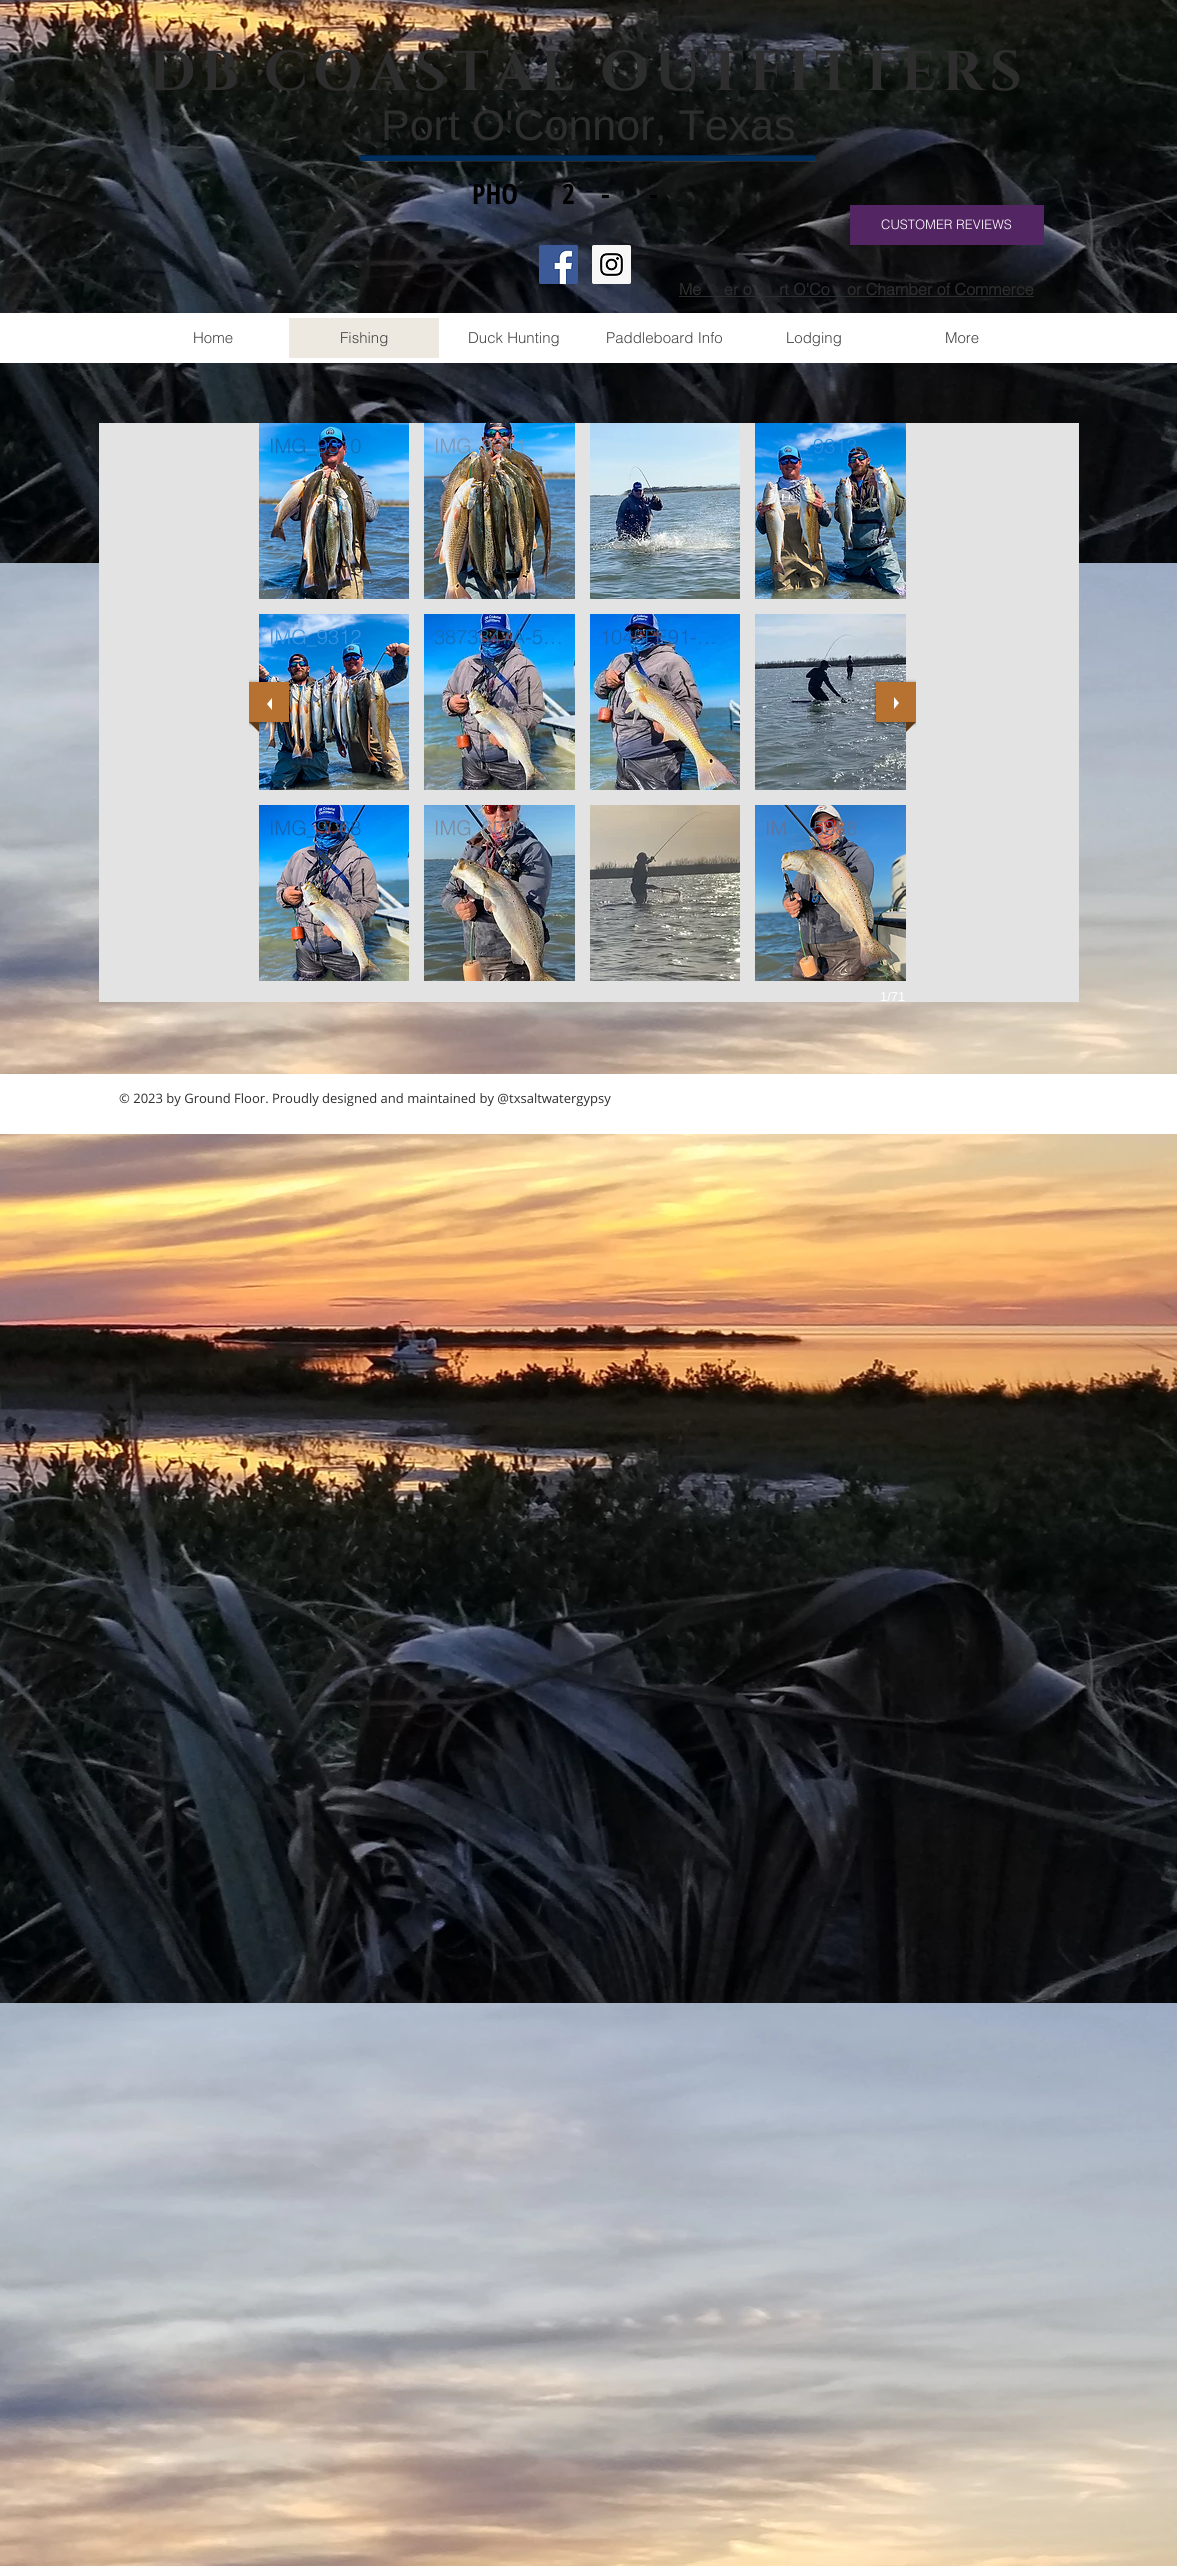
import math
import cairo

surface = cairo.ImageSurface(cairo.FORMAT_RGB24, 1177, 2566)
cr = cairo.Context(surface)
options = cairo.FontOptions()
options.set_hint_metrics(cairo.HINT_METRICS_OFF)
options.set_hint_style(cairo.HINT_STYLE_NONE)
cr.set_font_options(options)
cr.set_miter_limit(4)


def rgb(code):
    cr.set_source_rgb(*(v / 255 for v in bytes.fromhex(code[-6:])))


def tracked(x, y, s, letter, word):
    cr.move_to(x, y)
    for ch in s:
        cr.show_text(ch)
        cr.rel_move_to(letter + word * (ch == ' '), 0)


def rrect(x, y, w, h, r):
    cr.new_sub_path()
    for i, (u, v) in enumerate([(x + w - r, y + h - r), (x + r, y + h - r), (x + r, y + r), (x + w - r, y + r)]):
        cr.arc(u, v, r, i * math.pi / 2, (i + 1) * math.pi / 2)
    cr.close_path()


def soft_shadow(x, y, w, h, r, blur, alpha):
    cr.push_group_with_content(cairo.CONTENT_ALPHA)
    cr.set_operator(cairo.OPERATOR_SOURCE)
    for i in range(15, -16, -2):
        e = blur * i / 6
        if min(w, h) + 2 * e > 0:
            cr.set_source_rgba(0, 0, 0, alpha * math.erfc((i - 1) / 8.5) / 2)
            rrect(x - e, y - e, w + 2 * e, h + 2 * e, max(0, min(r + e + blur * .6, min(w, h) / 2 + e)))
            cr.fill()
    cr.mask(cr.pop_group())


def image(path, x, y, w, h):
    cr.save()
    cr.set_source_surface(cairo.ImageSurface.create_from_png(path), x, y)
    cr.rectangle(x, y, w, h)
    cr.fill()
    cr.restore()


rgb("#ffffff")
cr.paint()
image("img/1.png", 0, 0, 1177, 2566)
cr.set_source_rgba(1, 1, 1, 0.1)
cr.new_path()
cr.move_to(359, 158)
cr.curve_to(359, 160, 360, 162, 362, 162)
cr.line_to(813, 162)
cr.curve_to(815, 162, 816, 160, 816, 158)
cr.curve_to(816, 160, 814, 161, 813, 161)
cr.line_to(362, 161)
cr.curve_to(361, 161, 359, 160, 359, 158)
cr.close_path()
cr.fill()
rgb("#002e5d")
rrect(359, 155, 457, 6, 3)
cr.fill()
cr.set_source_rgba(0, 0, 0, 0.25)
cr.new_path()
cr.move_to(362, 156)
cr.line_to(813, 156)
cr.curve_to(815, 156, 816, 157, 816, 159)
cr.curve_to(816, 157, 815, 155, 813, 155)
cr.line_to(361, 155)
cr.curve_to(360, 155, 359, 157, 359, 158)
cr.curve_to(359, 157, 360, 156, 362, 156)
cr.close_path()
cr.fill()
rgb("#532563")
cr.rectangle(850, 205, 194, 40)
cr.fill()
image("img/2.png", 539, 245, 39, 39)
image("img/3.png", 592, 245, 39, 39)
for x, y, w, h, color in [
    (679, 296, 355, 1, "#2d2d2d"),
    (0, 313, 1177, 50, "#ffffff"),
    (289, 318, 150, 40, "#ede9e1"),
    (99, 423, 980, 579, "#e3e3e3"),
]:
    rgb(color)
    cr.rectangle(x, y, w, h)
    cr.fill()
image("img/4.png", 259, 423, 150, 176)
image("img/5.png", 424, 423, 151, 176)
image("img/6.png", 590, 423, 150, 176)
image("img/7.png", 755, 423, 151, 176)
image("img/8.png", 259, 614, 150, 176)
image("img/9.png", 424, 614, 151, 176)
image("img/10.png", 590, 614, 150, 176)
image("img/11.png", 755, 614, 151, 176)
image("img/12.png", 259, 805, 150, 176)
image("img/13.png", 424, 805, 151, 176)
image("img/14.png", 590, 805, 150, 176)
image("img/15.png", 755, 805, 151, 176)
cr.save()
cr.rectangle(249, 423, 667, 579)
cr.clip()
rgb("#000000")
soft_shadow(249, 683, 40, 40, 0, 2, 0.6)
cr.restore()
rgb("#b77231")
cr.rectangle(249, 682, 40, 40)
cr.fill()
rgb("#ffffff")
cr.new_path()
cr.move_to(272, 698)
cr.line_to(272, 710)
cr.line_to(267, 704)
cr.close_path()
cr.fill()
rgb("#5c3919")
cr.new_path()
cr.move_to(259, 722)
cr.line_to(259, 732)
cr.line_to(249, 722)
cr.close_path()
cr.fill()
cr.save()
cr.rectangle(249, 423, 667, 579)
cr.clip()
rgb("#000000")
soft_shadow(876, 683, 40, 40, 0, 2, 0.6)
cr.restore()
rgb("#b77231")
cr.rectangle(876, 682, 40, 40)
cr.fill()
rgb("#ffffff")
cr.new_path()
cr.move_to(894, 709)
cr.line_to(894, 697)
cr.line_to(899, 703)
cr.close_path()
cr.fill()
rgb("#5c3919")
cr.new_path()
cr.move_to(906, 732)
cr.line_to(906, 722)
cr.line_to(916, 722)
cr.close_path()
cr.fill()
rgb("#ffffff")
cr.rectangle(0, 1074, 1177, 60)
cr.fill()
cr.select_font_face("Cinzel", cairo.FONT_SLANT_NORMAL, cairo.FONT_WEIGHT_BOLD)
cr.set_font_size(56)
rgb("#2d2d2d")
tracked(149, 90, "DB COASTAL OUTFITTERS", 5.6, 0)
cr.select_font_face("Liberation Sans")
cr.set_font_size(43)
cr.move_to(381, 140)
cr.show_text("Port O'Connor, Texas")
cr.select_font_face("Open Sans Condensed", cairo.FONT_SLANT_NORMAL, cairo.FONT_WEIGHT_BOLD)
cr.set_font_size(28)
rgb("#000000")
for x, y, s in [
    (472, 204, "PHO"),
    (562, 204, "2"),
    (601, 204, "-"),
    (649, 204, "-"),
]:
    cr.move_to(x, y)
    cr.show_text(s)
cr.select_font_face("helvetica Light")
cr.set_font_size(13)
rgb("#ffffff")
cr.move_to(881, 229)
cr.show_text("CUSTOMER REVIEWS")
cr.select_font_face("helvetica", cairo.FONT_SLANT_NORMAL, cairo.FONT_WEIGHT_BOLD)
cr.set_font_size(16)
rgb("#2d2d2d")
for x, y, s in [
    (679, 295, "Me"),
    (724, 295, "er o"),
    (779, 295, "rt O'Co"),
    (847, 295, "or Chamber of Commerce"),
]:
    cr.move_to(x, y)
    cr.show_text(s)
cr.select_font_face("helvetica Light")
cr.set_font_size(15)
rgb("#444444")
for x, y, s in [
    (193, 343, "Home"),
    (340, 343, "Fishing"),
    (468, 343, "Duck Hunting"),
    (606, 343, "Paddleboard Info"),
    (786, 343, "Lodging"),
    (945, 343, "More"),
]:
    cr.move_to(x, y)
    cr.show_text(s)
cr.set_font_size(20)
rgb("#126db7")
cr.move_to(269, 453)
cr.show_text("IMG_9310")
rgb("#7a96b6")
cr.move_to(434, 453)
cr.show_text("IMG_9311")
rgb("#298fdd")
cr.move_to(803, 453)
cr.show_text("_9313")
rgb("#3995e0")
cr.move_to(269, 644)
cr.show_text("IMG_9312")
rgb("#126db7")
cr.move_to(434, 644)
cr.show_text("3873347A-5…")
rgb("#1663b4")
cr.move_to(600, 644)
cr.show_text("1045FE91-…")
rgb("#1362ae")
cr.move_to(269, 835)
cr.show_text("IMG_9068")
rgb("#808799")
cr.move_to(434, 835)
cr.show_text("IMG_6002")
rgb("#5f739b")
cr.move_to(765, 835)
cr.show_text("IM")
cr.move_to(813, 835)
cr.show_text("5988")
cr.select_font_face("Liberation Sans")
cr.set_font_size(13)
rgb("#ffffff")
cr.move_to(880, 1001)
cr.show_text("1/71")
cr.select_font_face("Open Sans")
rgb("#2d2d2d")
cr.move_to(119, 1103)
cr.show_text("© 2023 by Ground Floor. Proudly designed and maintained by @txsaltwatergypsy")
surface.write_to_png("page.png")
